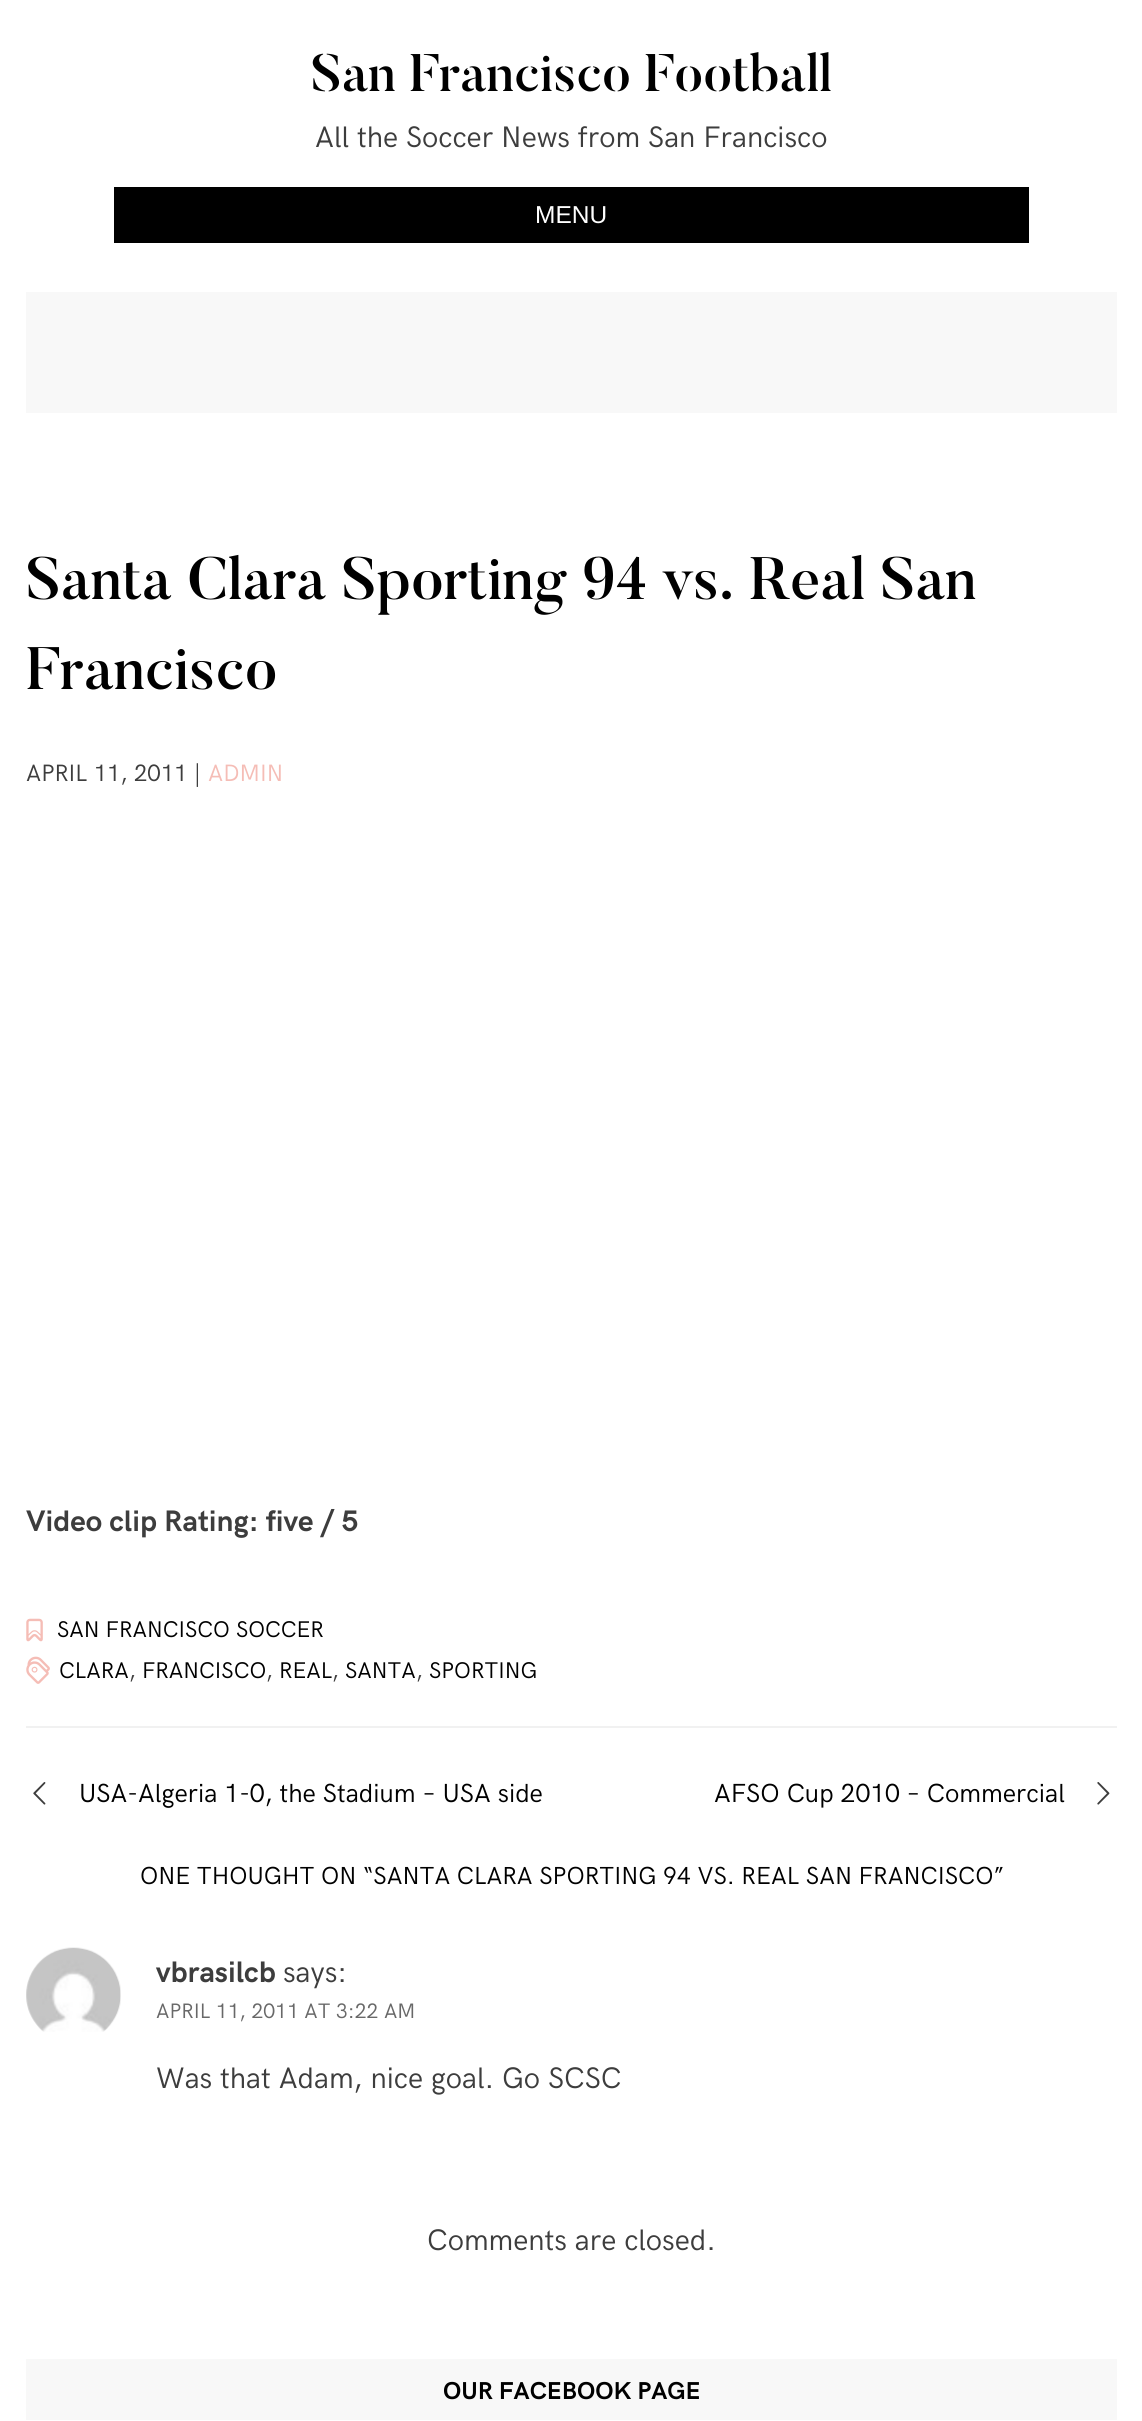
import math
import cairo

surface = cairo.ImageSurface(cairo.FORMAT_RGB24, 1142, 2421)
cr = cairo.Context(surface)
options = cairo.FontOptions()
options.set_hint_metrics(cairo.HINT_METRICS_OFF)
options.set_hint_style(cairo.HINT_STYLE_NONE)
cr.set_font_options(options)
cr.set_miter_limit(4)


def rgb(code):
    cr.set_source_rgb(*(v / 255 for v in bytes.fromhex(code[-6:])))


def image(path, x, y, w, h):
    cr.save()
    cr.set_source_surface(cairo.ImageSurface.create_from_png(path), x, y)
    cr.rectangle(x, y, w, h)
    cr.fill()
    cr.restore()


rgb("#ffffff")
cr.paint()
for x, y, w, h, color in [
    (114, 187, 915, 56, "#000000"),
    (26, 292, 1091, 121, "#f8f8f8"),
    (26, 1726, 1091, 2, "#f1f1f1"),
]:
    rgb(color)
    cr.rectangle(x, y, w, h)
    cr.fill()
image("img/1.png", 26, 1618, 17, 24)
image("img/2.png", 26, 1656, 24, 28)
image("img/3.png", 33, 1782, 13, 23)
image("img/4.png", 1097, 1782, 13, 23)
image("img/5.png", 26, 1947, 95, 85)
rgb("#f8f8f8")
cr.rectangle(26, 2359, 1091, 61)
cr.fill()
cr.select_font_face("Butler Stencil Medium")
cr.set_font_size(52.5)
rgb("#000000")
cr.move_to(311, 91)
cr.show_text("San Francisco Football")
cr.select_font_face("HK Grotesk")
cr.set_font_size(29.75)
rgb("#3d3d3d")
cr.move_to(315, 147)
cr.show_text("All the Soccer News from San Francisco")
cr.select_font_face("Liberation Sans")
cr.set_font_size(24.5)
rgb("#ffffff")
cr.move_to(535, 223)
cr.show_text("MENU")
cr.select_font_face("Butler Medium")
cr.set_font_size(59.5)
rgb("#000000")
cr.move_to(26, 599)
cr.show_text("Santa Clara Sporting 94 vs. Real San")
cr.move_to(26, 689)
cr.show_text("Francisco")
cr.select_font_face("HK Grotesk")
cr.set_font_size(23.75)
rgb("#3d3d3d")
cr.move_to(26, 781)
cr.show_text("APRIL 11, 2011 |")
rgb("#f5bdb6")
cr.move_to(208, 781)
cr.show_text("ADMIN")
cr.select_font_face("HK Grotesk", cairo.FONT_SLANT_NORMAL, cairo.FONT_WEIGHT_BOLD)
cr.set_font_size(29.75)
rgb("#3d3d3d")
cr.move_to(26, 1531)
cr.show_text("Video clip Rating: five / 5")
cr.select_font_face("HK Grotesk")
cr.set_font_size(22.75)
rgb("#000000")
cr.move_to(57, 1637)
cr.show_text("SAN FRANCISCO SOCCER")
cr.move_to(59, 1678)
cr.show_text("CLARA")
rgb("#3d3d3d")
cr.move_to(129, 1678)
cr.show_text(",")
rgb("#000000")
cr.move_to(142, 1678)
cr.show_text("FRANCISCO")
rgb("#3d3d3d")
cr.move_to(266, 1678)
cr.show_text(",")
rgb("#000000")
cr.move_to(279, 1678)
cr.show_text("REAL")
rgb("#3d3d3d")
cr.move_to(332, 1678)
cr.show_text(",")
rgb("#000000")
cr.move_to(345, 1678)
cr.show_text("SANTA")
rgb("#3d3d3d")
cr.move_to(416, 1678)
cr.show_text(",")
rgb("#000000")
cr.move_to(429, 1678)
cr.show_text("SPORTING")
cr.set_font_size(26.25)
cr.move_to(79, 1802)
cr.show_text("USA-Algeria 1-0, the Stadium – USA side")
cr.move_to(714, 1802)
cr.show_text("AFSO Cup 2010 – Commercial")
cr.set_font_size(24.7)
cr.move_to(140, 1884)
cr.show_text("ONE THOUGHT ON “SANTA CLARA SPORTING 94 VS. REAL SAN FRANCISCO”")
cr.select_font_face("HK Grotesk", cairo.FONT_SLANT_NORMAL, cairo.FONT_WEIGHT_BOLD)
cr.set_font_size(29.75)
rgb("#3d3d3d")
cr.move_to(156, 1982)
cr.show_text("vbrasilcb")
cr.select_font_face("HK Grotesk")
cr.move_to(283, 1982)
cr.show_text("says:")
cr.set_font_size(21)
rgb("#686868")
cr.move_to(156, 2018)
cr.show_text("APRIL 11, 2011 AT 3:22 AM")
cr.set_font_size(29.75)
rgb("#3d3d3d")
cr.move_to(156, 2088)
cr.show_text("Was that Adam, nice goal. Go SCSC")
cr.move_to(427, 2250)
cr.show_text("Comments are closed.")
cr.select_font_face("HK Grotesk", cairo.FONT_SLANT_NORMAL, cairo.FONT_WEIGHT_BOLD)
cr.set_font_size(24.5)
rgb("#000000")
cr.move_to(443, 2399)
cr.show_text("OUR FACEBOOK PAGE")
surface.write_to_png("page.png")
